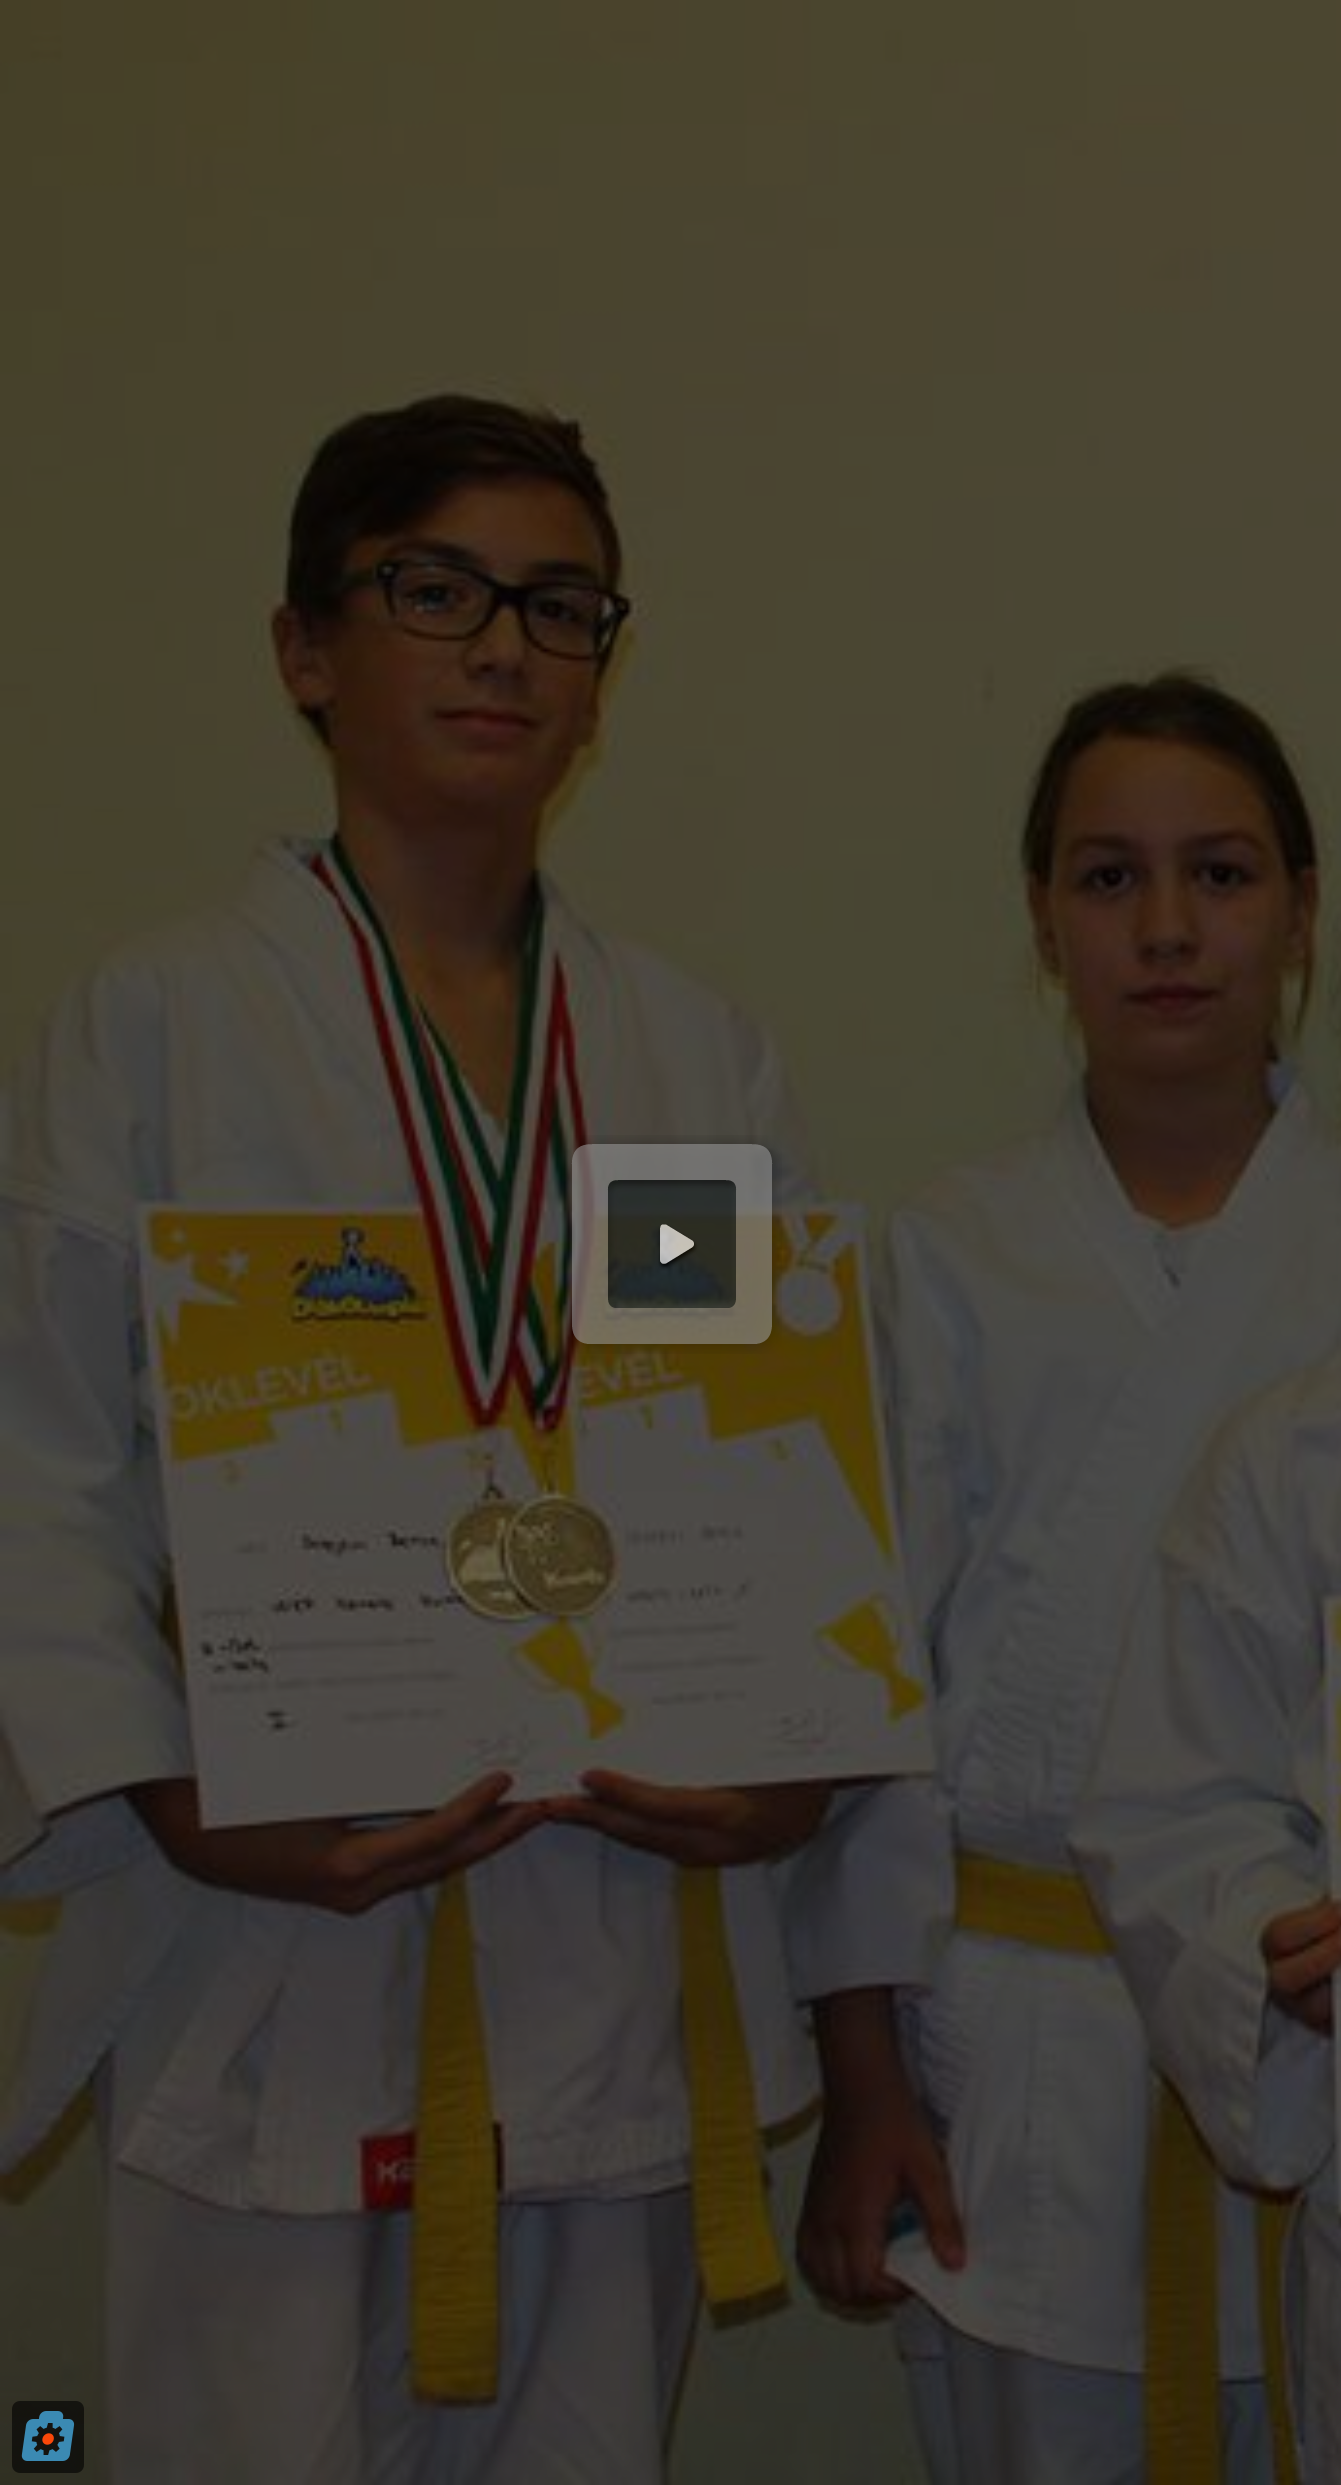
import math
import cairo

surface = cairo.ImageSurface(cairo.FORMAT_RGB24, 1341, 2485)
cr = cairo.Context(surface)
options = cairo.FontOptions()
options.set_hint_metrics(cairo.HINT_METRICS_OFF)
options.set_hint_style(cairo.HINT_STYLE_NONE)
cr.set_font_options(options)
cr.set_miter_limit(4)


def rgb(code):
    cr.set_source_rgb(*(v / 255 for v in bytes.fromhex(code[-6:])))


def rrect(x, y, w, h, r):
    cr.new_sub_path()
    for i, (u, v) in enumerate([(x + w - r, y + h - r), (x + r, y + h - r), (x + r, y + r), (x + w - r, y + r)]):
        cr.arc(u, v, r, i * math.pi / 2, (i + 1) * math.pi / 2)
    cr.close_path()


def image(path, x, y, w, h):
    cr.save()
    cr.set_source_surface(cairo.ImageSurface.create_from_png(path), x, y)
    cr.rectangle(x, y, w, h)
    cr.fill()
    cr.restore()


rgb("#ffffff")
cr.paint()
image("img/1.png", 0, 0, 1341, 2485)
image("img/2.png", 564, 1135, 218, 219)
cr.set_source_rgba(0, 0, 0, 0.6)
rrect(12, 2401, 72, 72, 8)
cr.fill()
image("img/3.png", 21, 2411, 54, 50)
surface.write_to_png("page.png")
